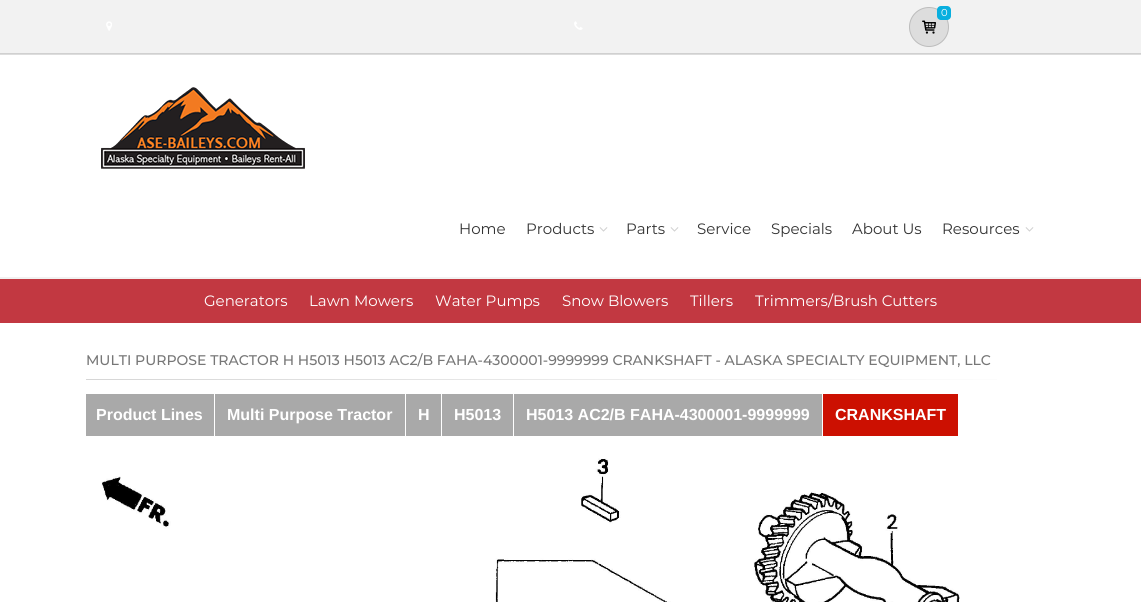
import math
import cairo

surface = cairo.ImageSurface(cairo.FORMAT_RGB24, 1141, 602)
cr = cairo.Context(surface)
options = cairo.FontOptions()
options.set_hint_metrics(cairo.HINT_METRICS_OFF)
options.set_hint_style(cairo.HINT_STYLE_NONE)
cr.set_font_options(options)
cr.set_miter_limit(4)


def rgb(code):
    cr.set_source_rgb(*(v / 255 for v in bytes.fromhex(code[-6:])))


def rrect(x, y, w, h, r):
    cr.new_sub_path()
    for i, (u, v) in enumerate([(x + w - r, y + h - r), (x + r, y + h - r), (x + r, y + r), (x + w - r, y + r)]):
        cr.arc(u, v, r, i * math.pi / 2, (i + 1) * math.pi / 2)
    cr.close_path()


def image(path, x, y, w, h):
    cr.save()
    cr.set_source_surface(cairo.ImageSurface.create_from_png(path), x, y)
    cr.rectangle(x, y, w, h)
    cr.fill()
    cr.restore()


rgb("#ffffff")
cr.paint()
rgb("#f2f2f2")
cr.rectangle(0, 0, 1141, 53)
cr.fill()
rgb("#d0d0d0")
cr.rectangle(0, 53, 1141, 1)
cr.fill()
rgb("#dddddd")
cr.arc(929, 27, 20, 0, 2 * math.pi)
cr.fill()
cr.arc(929, 27, 19.5, 0, 2 * math.pi)
cr.set_source_rgba(0, 0, 0, 0.15)
cr.set_line_width(1)
cr.stroke()
rgb("#09afdf")
rrect(937, 6, 14, 14, 4)
cr.fill()
image("img/1.png", 922, 20, 14, 14)
image("img/2.png", 106, 21, 6, 10)
image("img/3.png", 574, 21, 9, 9)
rgb("#dddddd")
cr.rectangle(0, 54, 1141, 1)
cr.fill()
rgb("#f1f1f1")
cr.rectangle(0, 277, 1141, 2)
cr.fill()
image("img/4.png", 101, 87, 204, 82)
image("img/5.png", 599, 227, 9, 5)
image("img/5.png", 670, 227, 9, 5)
image("img/5.png", 1025, 227, 9, 5)
rgb("#c23841")
cr.rectangle(0, 279, 1141, 44)
cr.fill()
gradient = cairo.LinearGradient(86, 380, 1056, 379)
gradient.add_color_stop_rgba(0, 0.839, 0.839, 0.839, 1)
gradient.add_color_stop_rgba(1, 1, 1, 1, 1)
cr.set_source(gradient)
cr.rectangle(86, 379, 911, 1)
cr.fill()
for x, y, w, h, color in [
    (86, 394, 128, 42, "#a9a9a9"),
    (215, 394, 190, 42, "#a9a9a9"),
    (406, 394, 35, 42, "#a9a9a9"),
    (442, 394, 71, 42, "#a9a9a9"),
    (514, 394, 308, 42, "#a9a9a9"),
    (823, 394, 135, 42, "#cc1001"),
]:
    rgb(color)
    cr.rectangle(x, y, w, h)
    cr.fill()
image("img/6.png", 101, 458, 859, 144)
cr.select_font_face("Montserrat")
cr.set_font_size(10)
rgb("#ffffff")
cr.move_to(941, 16)
cr.show_text("0")
cr.set_font_size(15)
rgb("#333333")
for x, y, s in [
    (459, 234, "Home"),
    (526, 234, "Products"),
    (626, 234, "Parts"),
    (697, 234, "Service"),
    (771, 234, "Specials"),
    (852, 234, "About Us"),
    (942, 234, "Resources"),
]:
    cr.move_to(x, y)
    cr.show_text(s)
rgb("#ffffff")
for x, y, s in [
    (204, 306, "Generators"),
    (309, 306, "Lawn Mowers"),
    (435, 306, "Water Pumps"),
    (562, 306, "Snow Blowers"),
    (690, 306, "Tillers"),
    (755, 306, "Trimmers/Brush Cutters"),
]:
    cr.move_to(x, y)
    cr.show_text(s)
cr.select_font_face("Montserrat Medium")
cr.set_font_size(14)
rgb("#777777")
cr.move_to(86, 365)
cr.show_text("MULTI PURPOSE TRACTOR H H5013 H5013 AC2/B FAHA-4300001-9999999 CRANKSHAFT - ALASKA SPECIALTY EQUIPMENT, LLC")
cr.select_font_face("Liberation Sans", cairo.FONT_SLANT_NORMAL, cairo.FONT_WEIGHT_BOLD)
cr.set_font_size(16)
rgb("#ffffff")
for x, y, s in [
    (96, 420, "Product Lines"),
    (227, 420, "Multi Purpose Tractor"),
    (418, 420, "H"),
    (454, 420, "H5013"),
    (526, 420, "H5013 AC2/B FAHA-4300001-9999999"),
    (835, 420, "CRANKSHAFT"),
]:
    cr.move_to(x, y)
    cr.show_text(s)
surface.write_to_png("page.png")
